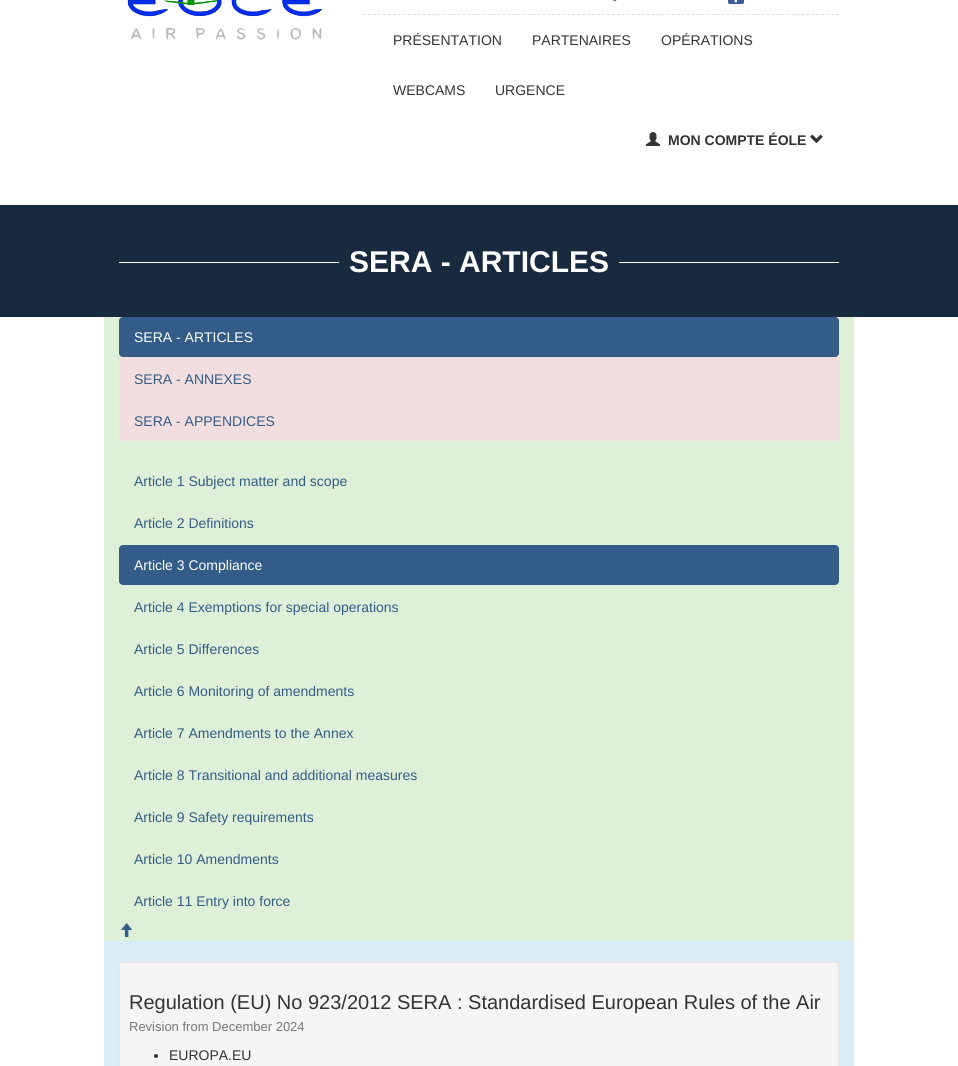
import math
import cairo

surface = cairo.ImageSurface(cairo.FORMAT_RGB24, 958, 1066)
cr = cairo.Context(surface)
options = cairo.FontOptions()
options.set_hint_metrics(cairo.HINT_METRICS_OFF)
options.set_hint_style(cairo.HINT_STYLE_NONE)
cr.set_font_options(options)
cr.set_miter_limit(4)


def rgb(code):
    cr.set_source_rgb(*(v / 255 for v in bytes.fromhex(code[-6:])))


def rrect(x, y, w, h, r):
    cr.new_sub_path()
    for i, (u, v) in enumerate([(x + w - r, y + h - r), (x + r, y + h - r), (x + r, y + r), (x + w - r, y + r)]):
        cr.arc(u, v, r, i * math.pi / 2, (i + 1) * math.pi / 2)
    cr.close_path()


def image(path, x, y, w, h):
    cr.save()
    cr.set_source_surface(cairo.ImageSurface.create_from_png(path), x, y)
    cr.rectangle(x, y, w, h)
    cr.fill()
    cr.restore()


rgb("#ffffff")
cr.paint()
rgb("#172a3e")
cr.rectangle(0, 205, 958, 112)
cr.fill()
image("img/1.png", 127, 0, 196, 40)
cr.new_path()
cr.move_to(363, 14.5)
cr.line_to(839, 14.5)
rgb("#e0e0e0")
cr.set_line_width(1)
cr.set_dash([3, 1.98])
cr.stroke()
image("img/2.png", 612, 0, 5, 1)
image("img/3.png", 728, 0, 16, 4)
image("img/4.png", 646, 132, 14, 14)
image("img/5.png", 810, 134, 13, 10)
for x, y, w, h, color in [
    (119, 262, 720, 1, "#ffffff"),
    (339, 262, 280, 1, "#172a3e"),
    (104, 317, 750, 624, "#dff0d8"),
    (119, 317, 720, 124, "#f2dede"),
]:
    rgb(color)
    cr.rectangle(x, y, w, h)
    cr.fill()
rgb("#335c88")
rrect(119, 317, 720, 40, 4)
cr.fill()
rrect(119, 545, 720, 40, 4)
cr.fill()
image("img/6.png", 121, 923, 11, 14)
rgb("#d9edf7")
cr.rectangle(104, 941, 750, 125)
cr.fill()
rgb("#f5f5f5")
rrect(119, 961, 720, 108, 3)
cr.fill()
rgb("#e9e9e9")
cr.new_path()
cr.move_to(122, 963)
cr.line_to(836, 963)
cr.curve_to(837, 963, 838, 964, 838, 965)
cr.curve_to(838, 964, 838, 962, 836, 962)
cr.line_to(122, 962)
cr.curve_to(120, 962, 120, 964, 120, 965)
cr.curve_to(120, 964, 121, 963, 122, 963)
cr.close_path()
cr.fill()
rrect(119.5, 961.5, 719, 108, 2.5)
rgb("#e3e3e3")
cr.set_dash([])
cr.stroke()
rgb("#333333")
cr.arc(156, 1056, 2, 0, 2 * math.pi)
cr.fill()
cr.select_font_face("Liberation Sans")
cr.set_font_size(14)
for x, y, s in [
    (393, 45, "PRÉSENTATION"),
    (532, 45, "PARTENAIRES"),
    (661, 45, "OPÉRATIONS"),
    (393, 95, "WEBCAMS"),
    (495, 95, "URGENCE"),
]:
    cr.move_to(x, y)
    cr.show_text(s)
cr.select_font_face("Liberation Sans", cairo.FONT_SLANT_NORMAL, cairo.FONT_WEIGHT_BOLD)
cr.move_to(668, 145)
cr.show_text("MON COMPTE ÉOLE")
cr.set_font_size(30)
rgb("#ffffff")
cr.move_to(349, 272)
cr.show_text("SERA - ARTICLES")
cr.select_font_face("Liberation Sans")
cr.set_font_size(14)
cr.move_to(134, 342)
cr.show_text("SERA - ARTICLES")
rgb("#335c88")
for x, y, s in [
    (134, 384, "SERA - ANNEXES"),
    (134, 426, "SERA - APPENDICES"),
    (134, 486, "Article 1 Subject matter and scope"),
    (134, 528, "Article 2 Definitions"),
]:
    cr.move_to(x, y)
    cr.show_text(s)
rgb("#ffffff")
cr.move_to(134, 570)
cr.show_text("Article 3 Compliance")
rgb("#335c88")
for x, y, s in [
    (134, 612, "Article 4 Exemptions for special operations"),
    (134, 654, "Article 5 Differences"),
    (134, 696, "Article 6 Monitoring of amendments"),
    (134, 738, "Article 7 Amendments to the Annex"),
    (134, 780, "Article 8 Transitional and additional measures"),
    (134, 822, "Article 9 Safety requirements"),
    (134, 864, "Article 10 Amendments"),
    (134, 906, "Article 11 Entry into force"),
]:
    cr.move_to(x, y)
    cr.show_text(s)
cr.set_font_size(20)
rgb("#333333")
cr.move_to(129, 1009)
cr.show_text("Regulation (EU) No 923/2012 SERA : Standardised European Rules of the Air")
cr.set_font_size(13)
rgb("#777777")
cr.move_to(129, 1031)
cr.show_text("Revision from December 2024")
cr.set_font_size(14)
rgb("#333333")
cr.move_to(169, 1060)
cr.show_text("EUROPA.EU")
surface.write_to_png("page.png")
